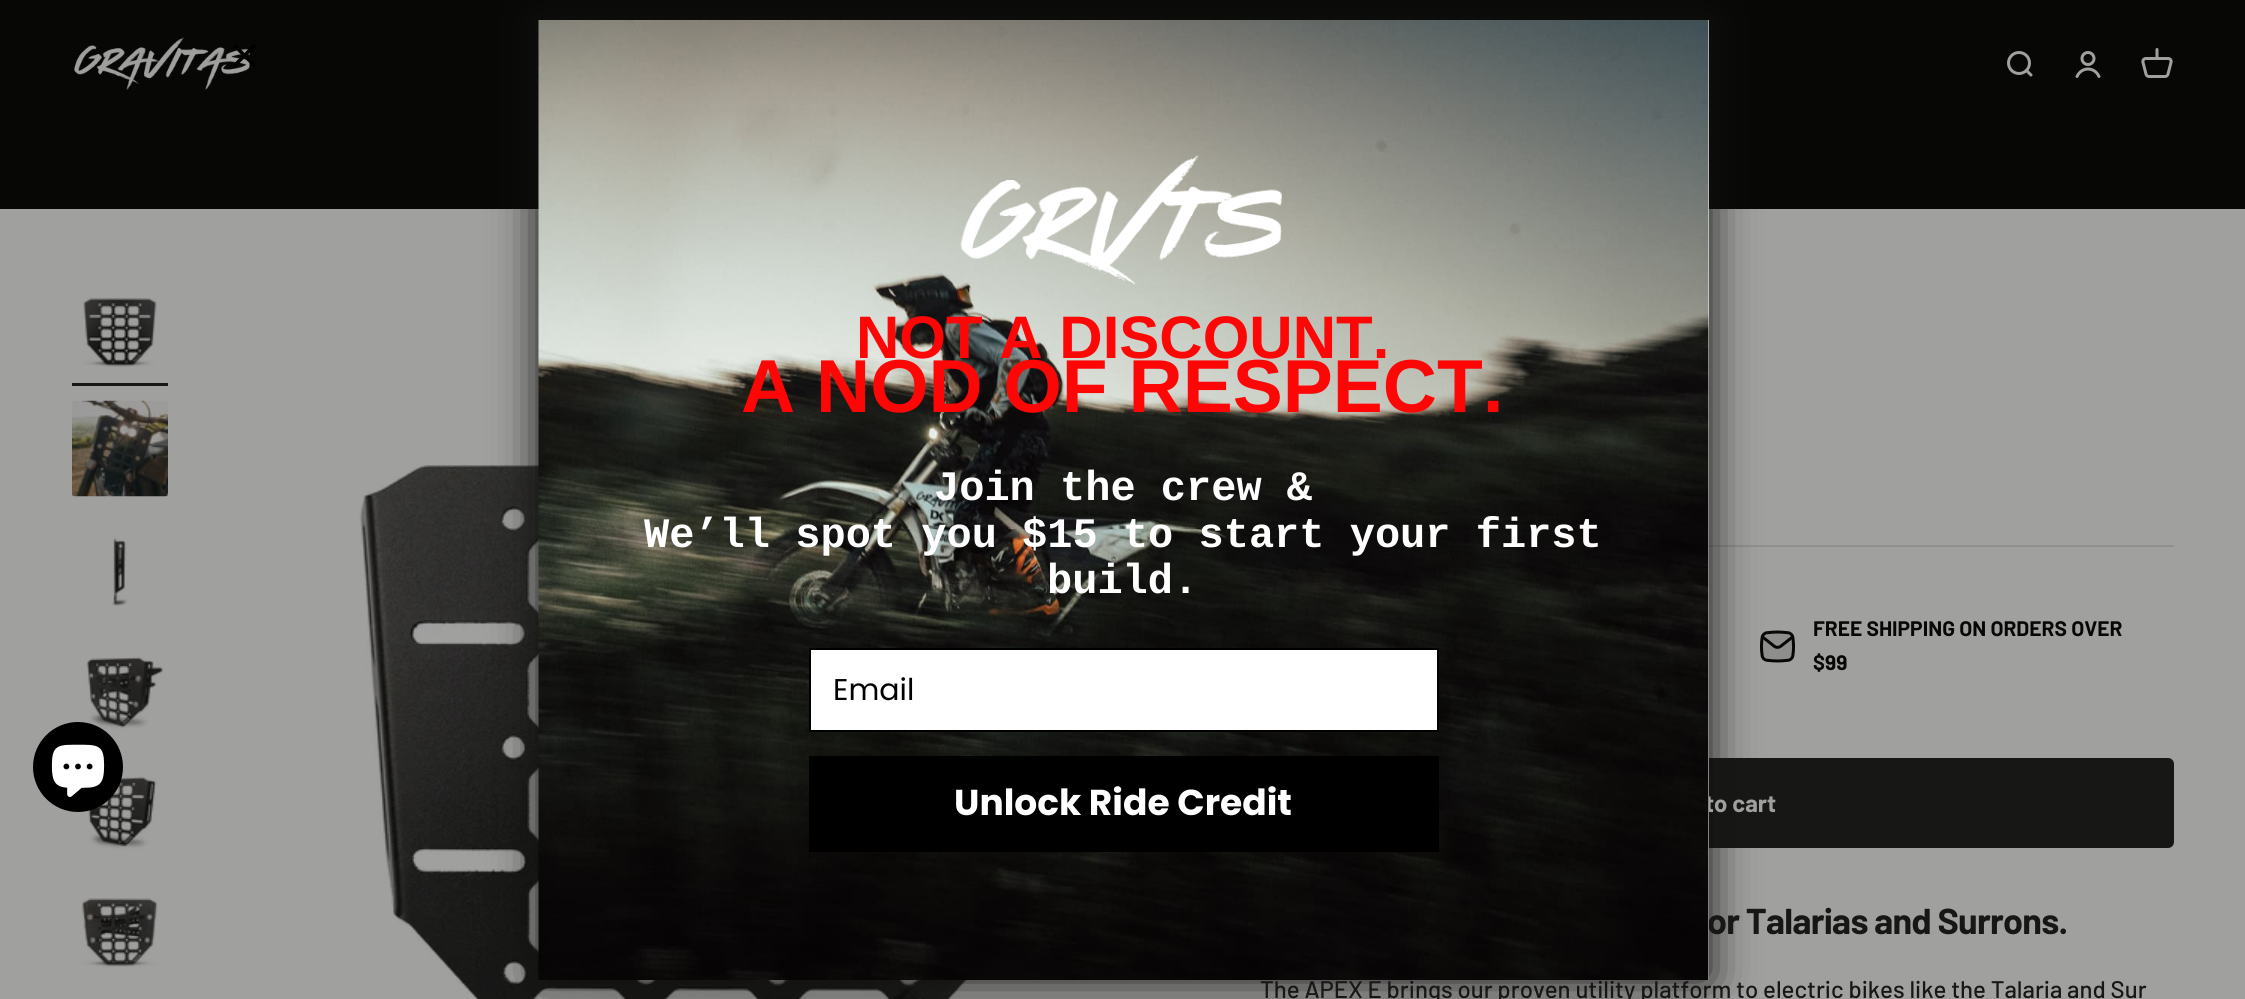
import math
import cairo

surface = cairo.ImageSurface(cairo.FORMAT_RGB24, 2245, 999)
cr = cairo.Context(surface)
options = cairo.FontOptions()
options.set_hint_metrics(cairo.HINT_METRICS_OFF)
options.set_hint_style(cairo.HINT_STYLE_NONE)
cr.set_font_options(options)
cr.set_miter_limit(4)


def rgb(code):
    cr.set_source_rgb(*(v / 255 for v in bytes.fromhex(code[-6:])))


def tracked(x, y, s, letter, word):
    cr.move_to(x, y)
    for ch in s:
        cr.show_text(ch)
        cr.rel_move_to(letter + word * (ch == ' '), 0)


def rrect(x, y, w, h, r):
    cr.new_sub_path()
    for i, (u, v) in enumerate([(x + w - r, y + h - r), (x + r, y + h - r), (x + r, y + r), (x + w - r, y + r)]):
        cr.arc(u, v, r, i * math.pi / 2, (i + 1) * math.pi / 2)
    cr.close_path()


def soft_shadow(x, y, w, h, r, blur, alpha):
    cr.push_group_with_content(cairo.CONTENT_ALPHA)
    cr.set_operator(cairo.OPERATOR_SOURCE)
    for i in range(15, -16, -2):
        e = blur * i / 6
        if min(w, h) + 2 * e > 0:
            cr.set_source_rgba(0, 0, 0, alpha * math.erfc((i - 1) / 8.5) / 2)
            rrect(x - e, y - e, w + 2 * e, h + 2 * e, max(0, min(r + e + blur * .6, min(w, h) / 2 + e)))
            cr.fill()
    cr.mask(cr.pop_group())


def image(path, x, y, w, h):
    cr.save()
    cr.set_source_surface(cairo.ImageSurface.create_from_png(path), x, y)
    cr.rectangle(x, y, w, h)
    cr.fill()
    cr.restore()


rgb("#a0a09f")
cr.paint()
rgb("#070706")
cr.rectangle(0, 0, 2245, 209)
cr.fill()
image("img/1.png", 74, 37, 176, 53)
cr.arc(2019, 63, 10.5, 0, 2 * math.pi)
rgb("#a0a09f")
cr.set_line_width(3)
cr.stroke()
cr.new_path()
cr.move_to(2026.5, 70.5)
cr.line_to(2031, 75)
cr.set_line_cap(cairo.LINE_CAP_ROUND)
cr.set_line_join(cairo.LINE_JOIN_ROUND)
cr.stroke()
cr.arc(2088, 58.5, 6, 0, 2 * math.pi)
cr.set_line_cap(cairo.LINE_CAP_BUTT)
cr.set_line_join(cairo.LINE_JOIN_MITER)
cr.stroke()
cr.new_path()
cr.move_to(2077, 76.5)
cr.curve_to(2081.5, 66.5, 2094.5, 66.5, 2099, 76.5)
cr.set_line_cap(cairo.LINE_CAP_ROUND)
cr.stroke()
image("img/2.png", 2141, 48, 32, 30)
image("img/9.png", 86, 654, 78, 76)
image("img/10.png", 87, 776, 70, 74)
rgb("#000000")
cr.arc(78, 767, 45, 0, 2 * math.pi)
cr.fill()
image("img/3.png", 51, 744, 54, 53)
image("img/12.png", 359, 464, 709, 535)
rgb("#90908f")
cr.rectangle(1709, 545, 465, 2)
cr.fill()
image("img/13.png", 1760, 630, 36, 33)
rgb("#171716")
rrect(1260, 758, 914, 90, 6)
cr.fill()
rgb("#121210")
soft_shadow(539, 20, 1170, 960, 0, 22.5, 1)
cr.new_path()
cr.move_to(235, 46)
cr.line_to(254, 65)
cr.move_to(235, 65)
cr.line_to(254, 46)
cr.close_path()
rgb("#000000")
cr.set_line_width(3.6)
cr.set_line_join(cairo.LINE_JOIN_ROUND)
cr.stroke()
image("img/6.png", 83, 298, 74, 71)
rgb("#171716")
cr.rectangle(72, 383, 96, 3)
cr.fill()
image("img/7.png", 72, 400, 96, 97)
image("img/8.png", 112, 538, 16, 68)
image("img/11.png", 82, 898, 76, 70)
cr.select_font_face("Barlow", cairo.FONT_SLANT_NORMAL, cairo.FONT_WEIGHT_BOLD)
cr.set_font_size(21)
rgb("#070706")
cr.move_to(1813, 636)
cr.show_text("FREE SHIPPING ON ORDERS OVER")
cr.move_to(1813, 670)
cr.show_text("$99")
cr.set_font_size(24)
rgb("#a0a09f")
cr.move_to(1705, 812)
cr.show_text("to cart")
cr.set_font_size(36)
rgb("#171716")
tracked(1707, 934, "or Talarias and Surrons.", -0.75, 0)
rgb("#ffffff")
cr.rectangle(1708, 20, 1, 960)
cr.fill()
image("img/4.png", 538, 20, 1171, 960)
rgb("#000000")
cr.rectangle(809, 756, 630, 96)
cr.fill()
cr.select_font_face("Poppins", cairo.FONT_SLANT_NORMAL, cairo.FONT_WEIGHT_BOLD)
rgb("#ffffff")
cr.move_to(954, 815)
cr.show_text("Unlock Ride Credit")
cr.rectangle(810, 649, 628, 82)
cr.fill_preserve()
rgb("#000000")
cr.set_line_width(2)
cr.set_line_cap(cairo.LINE_CAP_BUTT)
cr.set_line_join(cairo.LINE_JOIN_MITER)
cr.stroke()
cr.select_font_face("Poppins")
cr.set_font_size(30)
cr.move_to(833, 700)
cr.show_text("Email")
cr.select_font_face("Liberation Mono", cairo.FONT_SLANT_NORMAL, cairo.FONT_WEIGHT_BOLD)
cr.set_font_size(42)
rgb("#ffffff")
for x, y, s in [
    (1047, 593, "build."),
    (644, 547, "We’ll spot you $15 to start your first"),
    (934, 500, "Join the crew &"),
]:
    cr.move_to(x, y)
    cr.show_text(s)
cr.select_font_face("Liberation Sans", cairo.FONT_SLANT_NORMAL, cairo.FONT_WEIGHT_BOLD)
cr.set_font_size(75)
rgb("#fe0606")
cr.move_to(741, 412)
cr.show_text("A NOD OF RESPECT.")
cr.set_font_size(60)
cr.move_to(856, 358)
cr.show_text("NOT A DISCOUNT.")
image("img/5.png", 960, 155, 322, 130)
cr.select_font_face("Barlow Medium")
cr.set_font_size(24)
rgb("#171716")
cr.move_to(1260, 998)
cr.show_text("The APEX E brings our proven utility platform to electric bikes like the Talaria and Sur")
surface.write_to_png("page.png")
